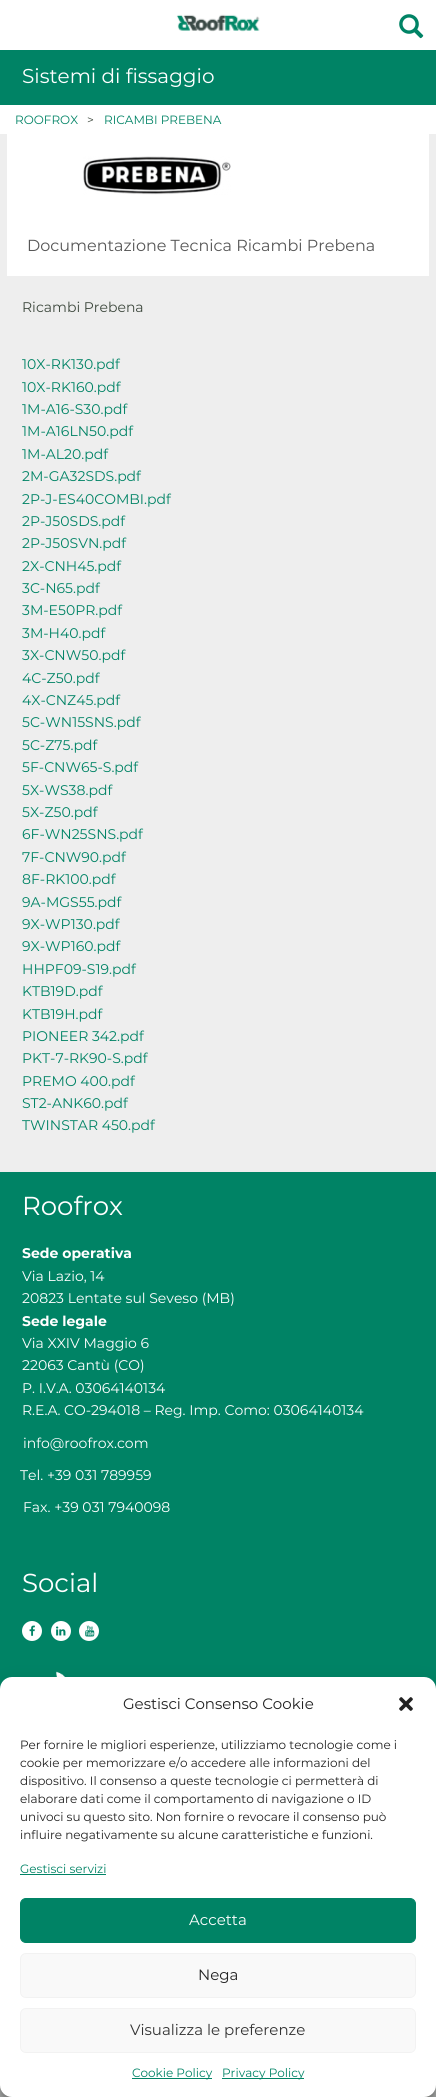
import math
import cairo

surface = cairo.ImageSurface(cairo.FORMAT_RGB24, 436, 2097)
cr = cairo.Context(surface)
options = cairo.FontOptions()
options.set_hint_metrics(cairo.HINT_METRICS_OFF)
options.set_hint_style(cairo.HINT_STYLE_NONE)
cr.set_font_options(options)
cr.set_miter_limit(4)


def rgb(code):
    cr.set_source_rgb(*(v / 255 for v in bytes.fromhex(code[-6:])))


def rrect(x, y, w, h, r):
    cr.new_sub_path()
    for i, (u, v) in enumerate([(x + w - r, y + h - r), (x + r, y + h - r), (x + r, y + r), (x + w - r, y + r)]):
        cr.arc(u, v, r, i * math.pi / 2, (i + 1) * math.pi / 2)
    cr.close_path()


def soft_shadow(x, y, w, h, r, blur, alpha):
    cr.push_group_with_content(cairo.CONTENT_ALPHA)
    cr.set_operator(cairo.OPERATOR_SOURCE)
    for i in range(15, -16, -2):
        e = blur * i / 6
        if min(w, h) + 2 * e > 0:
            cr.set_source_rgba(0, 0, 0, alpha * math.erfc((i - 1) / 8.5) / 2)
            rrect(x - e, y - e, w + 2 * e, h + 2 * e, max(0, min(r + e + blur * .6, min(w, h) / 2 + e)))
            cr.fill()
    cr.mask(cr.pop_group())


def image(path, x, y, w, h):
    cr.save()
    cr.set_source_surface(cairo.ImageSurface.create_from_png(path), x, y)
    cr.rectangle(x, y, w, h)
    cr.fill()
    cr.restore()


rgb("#b2b4b2")
cr.paint()
rgb("#ffffff")
cr.rectangle(0, 0, 436, 50)
cr.fill()
image("img/1.png", 176, 14, 84, 18)
image("img/2.png", 399, 14, 25, 25)
for x, y, w, h, color in [
    (0, 105, 436, 29, "#ffffff"),
    (0, 50, 436, 55, "#008365"),
    (0, 134, 436, 1038, "#eeeeee"),
    (7, 134, 422, 142, "#ffffff"),
]:
    rgb(color)
    cr.rectangle(x, y, w, h)
    cr.fill()
image("img/3.png", 83, 156, 148, 39)
rgb("#008365")
cr.rectangle(0, 1172, 436, 517)
cr.fill()
rgb("#ffffff")
cr.arc(32, 1631, 10, 0, 2 * math.pi)
cr.fill()
image("img/4.png", 29, 1625, 6, 11)
cr.arc(61, 1631, 10, 0, 2 * math.pi)
cr.fill()
image("img/5.png", 56, 1626, 10, 10)
cr.arc(89, 1631, 10, 0, 2 * math.pi)
cr.fill()
image("img/6.png", 85, 1625, 10, 12)
image("img/7.png", 56, 1671, 9, 6)
rgb("#000000")
soft_shadow(0, 1683, 436, 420, 12, 3, 0.23)
soft_shadow(0, 1687, 436, 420, 12, 10, 0.19)
rgb("#ffffff")
rrect(0, 1677, 436, 420, 12)
cr.fill()
image("img/8.png", 399, 1697, 14, 14)
rgb("#008365")
cr.rectangle(20, 1874, 86, 1)
cr.fill()
rrect(20.5, 1898.5, 395, 44, 5.5)
cr.fill_preserve()
cr.set_line_width(1)
cr.stroke()
rgb("#f9f9f9")
rrect(20.5, 1953.5, 395, 44, 5.5)
cr.fill_preserve()
rgb("#f2f2f2")
cr.stroke()
rgb("#f9f9f9")
rrect(20.5, 2008.5, 395, 44, 5.5)
cr.fill_preserve()
rgb("#f2f2f2")
cr.stroke()
rgb("#008365")
cr.rectangle(132, 2078, 80, 1)
cr.fill()
cr.rectangle(222, 2078, 82, 1)
cr.fill()
cr.select_font_face("Montserrat Thin")
cr.set_font_size(20)
rgb("#ffffff")
cr.move_to(22, 83)
cr.show_text("Sistemi di fissaggio")
cr.set_font_size(12)
rgb("#008365")
cr.move_to(15, 124)
cr.show_text("ROOFROX")
rgb("#3e493e")
cr.move_to(87, 124)
cr.show_text(">")
rgb("#008365")
cr.move_to(104, 124)
cr.show_text("RICAMBI PREBENA")
cr.set_font_size(16)
rgb("#575757")
cr.move_to(27, 251)
cr.show_text("Documentazione Tecnica Ricambi Prebena")
cr.set_font_size(14)
rgb("#3e493e")
cr.move_to(22, 312)
cr.show_text("Ricambi Prebena")
rgb("#008365")
for x, y, s in [
    (22, 369, "10X-RK130.pdf"),
    (22, 392, "10X-RK160.pdf"),
    (22, 414, "1M-A16-S30.pdf"),
    (22, 436, "1M-A16LN50.pdf"),
    (22, 459, "1M-AL20.pdf"),
    (22, 481, "2M-GA32SDS.pdf"),
    (22, 504, "2P-J-ES40COMBI.pdf"),
    (22, 526, "2P-J50SDS.pdf"),
    (22, 548, "2P-J50SVN.pdf"),
    (22, 571, "2X-CNH45.pdf"),
    (22, 593, "3C-N65.pdf"),
    (22, 615, "3M-E50PR.pdf"),
    (22, 638, "3M-H40.pdf"),
    (22, 660, "3X-CNW50.pdf"),
    (22, 683, "4C-Z50.pdf"),
    (22, 705, "4X-CNZ45.pdf"),
    (22, 727, "5C-WN15SNS.pdf"),
    (22, 750, "5C-Z75.pdf"),
    (22, 772, "5F-CNW65-S.pdf"),
    (22, 795, "5X-WS38.pdf"),
    (22, 817, "5X-Z50.pdf"),
    (22, 839, "6F-WN25SNS.pdf"),
    (22, 862, "7F-CNW90.pdf"),
    (22, 884, "8F-RK100.pdf"),
    (22, 907, "9A-MGS55.pdf"),
    (22, 929, "9X-WP130.pdf"),
    (22, 951, "9X-WP160.pdf"),
    (22, 974, "HHPF09-S19.pdf"),
    (22, 996, "KTB19D.pdf"),
    (22, 1019, "KTB19H.pdf"),
    (22, 1041, "PIONEER 342.pdf"),
    (22, 1063, "PKT-7-RK90-S.pdf"),
    (22, 1086, "PREMO 400.pdf"),
    (22, 1108, "ST2-ANK60.pdf"),
    (22, 1130, "TWINSTAR 450.pdf"),
]:
    cr.move_to(x, y)
    cr.show_text(s)
cr.set_font_size(26)
rgb("#ffffff")
cr.move_to(22, 1215)
cr.show_text("Roofrox")
cr.select_font_face("Montserrat", cairo.FONT_SLANT_NORMAL, cairo.FONT_WEIGHT_BOLD)
cr.set_font_size(14)
cr.move_to(22, 1258)
cr.show_text("Sede operativa")
cr.select_font_face("Montserrat Thin")
cr.move_to(22, 1281)
cr.show_text("Via Lazio, 14")
cr.move_to(22, 1303)
cr.show_text("20823 Lentate sul Seveso (MB)")
cr.select_font_face("Montserrat", cairo.FONT_SLANT_NORMAL, cairo.FONT_WEIGHT_BOLD)
cr.move_to(22, 1326)
cr.show_text("Sede legale")
cr.select_font_face("Montserrat Thin")
for x, y, s in [
    (22, 1348, "Via XXIV Maggio 6"),
    (22, 1370, "22063 Cantù (CO)"),
    (22, 1393, "P. I.V.A. 03064140134"),
    (22, 1415, "R.E.A. CO-294018 – Reg. Imp. Como: 03064140134"),
    (23, 1448, "info@roofrox.com"),
    (20, 1480, "Tel. +39 031 789959"),
    (23, 1512, "Fax. +39 031 7940098"),
]:
    cr.move_to(x, y)
    cr.show_text(s)
cr.set_font_size(26)
cr.move_to(22, 1592)
cr.show_text("Social")
cr.set_font_size(15)
rgb("#222222")
cr.move_to(123, 1709)
cr.show_text("Gestisci Consenso Cookie")
cr.set_font_size(12)
for x, y, s in [
    (20, 1749, "Per fornire le migliori esperienze, utilizziamo tecnologie come i"),
    (20, 1767, "cookie per memorizzare e/o accedere alle informazioni del"),
    (20, 1785, "dispositivo. Il consenso a queste tecnologie ci permetterà di"),
    (20, 1803, "elaborare dati come il comportamento di navigazione o ID"),
    (20, 1821, "univoci su questo sito. Non fornire o revocare il consenso può"),
    (20, 1839, "influire negativamente su alcune caratteristiche e funzioni."),
]:
    cr.move_to(x, y)
    cr.show_text(s)
rgb("#008365")
cr.move_to(20, 1873)
cr.show_text("Gestisci servizi")
cr.set_font_size(15)
rgb("#ffffff")
cr.move_to(189, 1925)
cr.show_text("Accetta")
rgb("#222222")
cr.move_to(198, 1980)
cr.show_text("Nega")
rgb("#333333")
cr.move_to(130, 2035)
cr.show_text("Visualizza le preferenze")
cr.set_font_size(12)
rgb("#008365")
cr.move_to(132, 2077)
cr.show_text("Cookie Policy")
cr.move_to(222, 2077)
cr.show_text("Privacy Policy")
surface.write_to_png("page.png")
